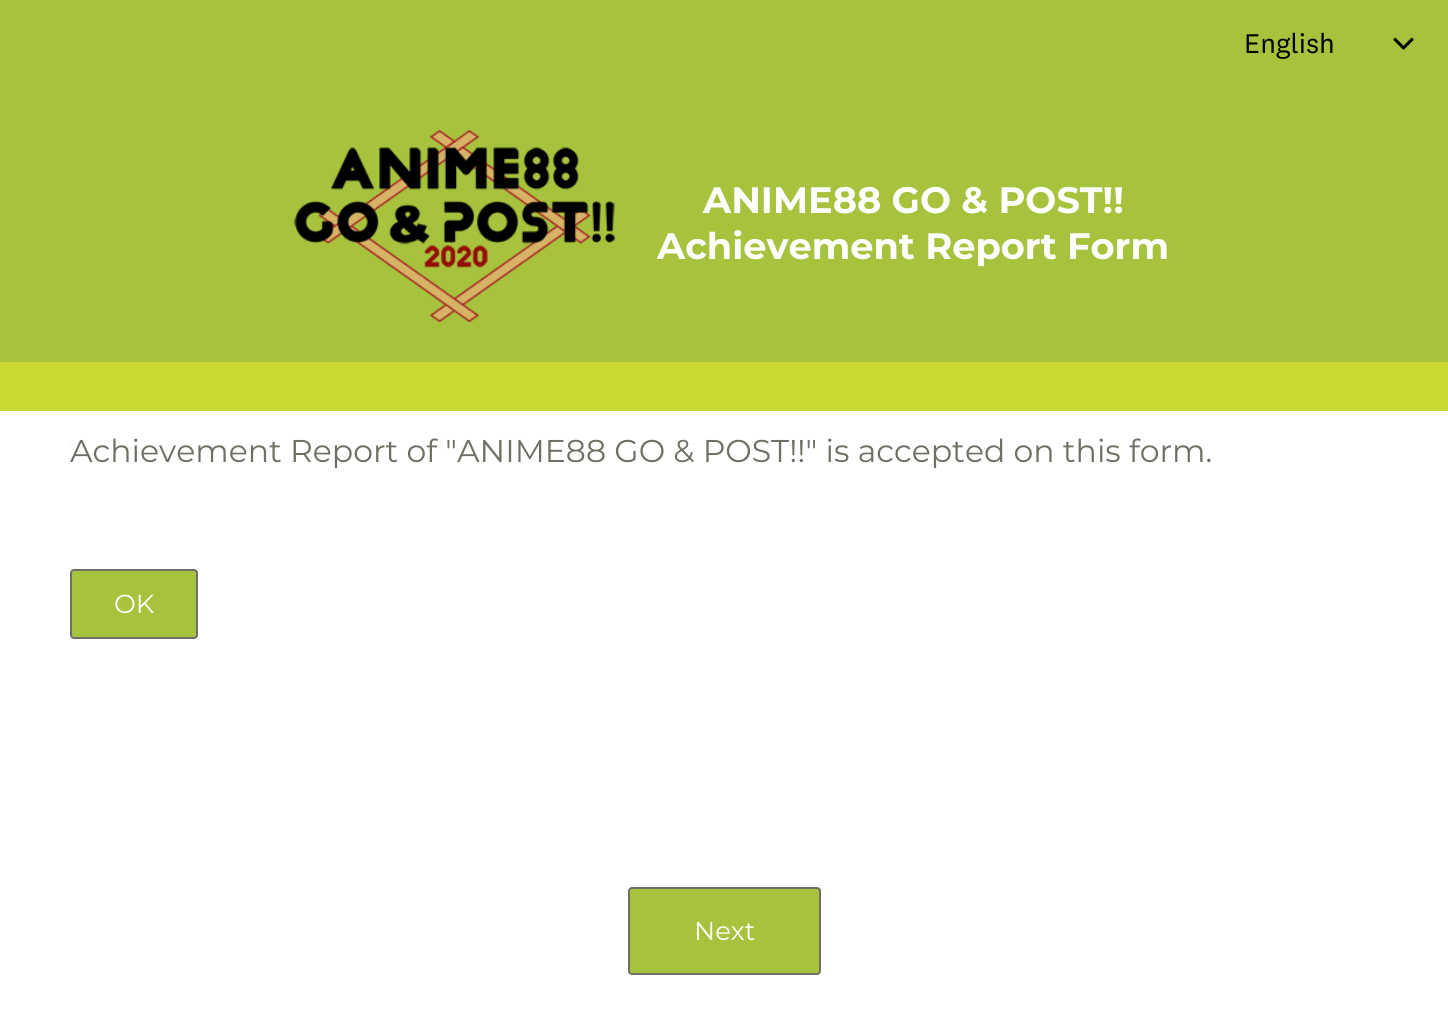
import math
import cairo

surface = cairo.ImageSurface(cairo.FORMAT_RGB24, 1448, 1032)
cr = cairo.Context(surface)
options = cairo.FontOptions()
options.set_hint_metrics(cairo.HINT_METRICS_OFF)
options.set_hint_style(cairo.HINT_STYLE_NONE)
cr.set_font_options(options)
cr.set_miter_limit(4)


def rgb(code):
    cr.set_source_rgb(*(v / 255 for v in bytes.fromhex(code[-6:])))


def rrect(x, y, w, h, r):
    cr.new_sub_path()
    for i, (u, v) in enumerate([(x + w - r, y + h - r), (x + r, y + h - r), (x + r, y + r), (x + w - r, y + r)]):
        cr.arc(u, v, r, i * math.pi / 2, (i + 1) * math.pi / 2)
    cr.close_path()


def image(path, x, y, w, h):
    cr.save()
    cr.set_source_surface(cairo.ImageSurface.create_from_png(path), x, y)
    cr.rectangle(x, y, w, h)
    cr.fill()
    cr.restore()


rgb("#ffffff")
cr.paint()
rgb("#a7c23d")
cr.rectangle(0, 0, 1448, 362)
cr.fill()
image("img/1.png", 1393, 37, 21, 13)
image("img/2.png", 293, 130, 322, 193)
rgb("#ccd832")
cr.rectangle(0, 362, 1448, 49)
cr.fill()
rgb("#a7c23d")
rrect(71, 570, 126, 68, 3)
cr.fill_preserve()
rgb("#706f65")
cr.stroke()
rgb("#a7c23d")
rrect(629, 888, 191, 86, 3)
cr.fill_preserve()
rgb("#706f65")
cr.stroke()
cr.select_font_face("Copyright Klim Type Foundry")
cr.set_font_size(28)
rgb("#000000")
cr.move_to(1244, 53)
cr.show_text("English")
cr.select_font_face("Montserrat", cairo.FONT_SLANT_NORMAL, cairo.FONT_WEIGHT_BOLD)
cr.set_font_size(36.75)
rgb("#ffffff")
cr.move_to(703, 213)
cr.show_text("ANIME88 GO & POST!!")
cr.move_to(657, 259)
cr.show_text("Achievement Report Form")
cr.select_font_face("Montserrat")
cr.set_font_size(31.5)
rgb("#706f65")
cr.move_to(70, 462)
cr.show_text("Achievement Report of \"ANIME88 GO & POST!!\" is accepted on this form.")
cr.set_font_size(26)
rgb("#ffffff")
cr.move_to(114, 613)
cr.show_text("OK")
cr.move_to(694, 940)
cr.show_text("Next")
surface.write_to_png("page.png")
